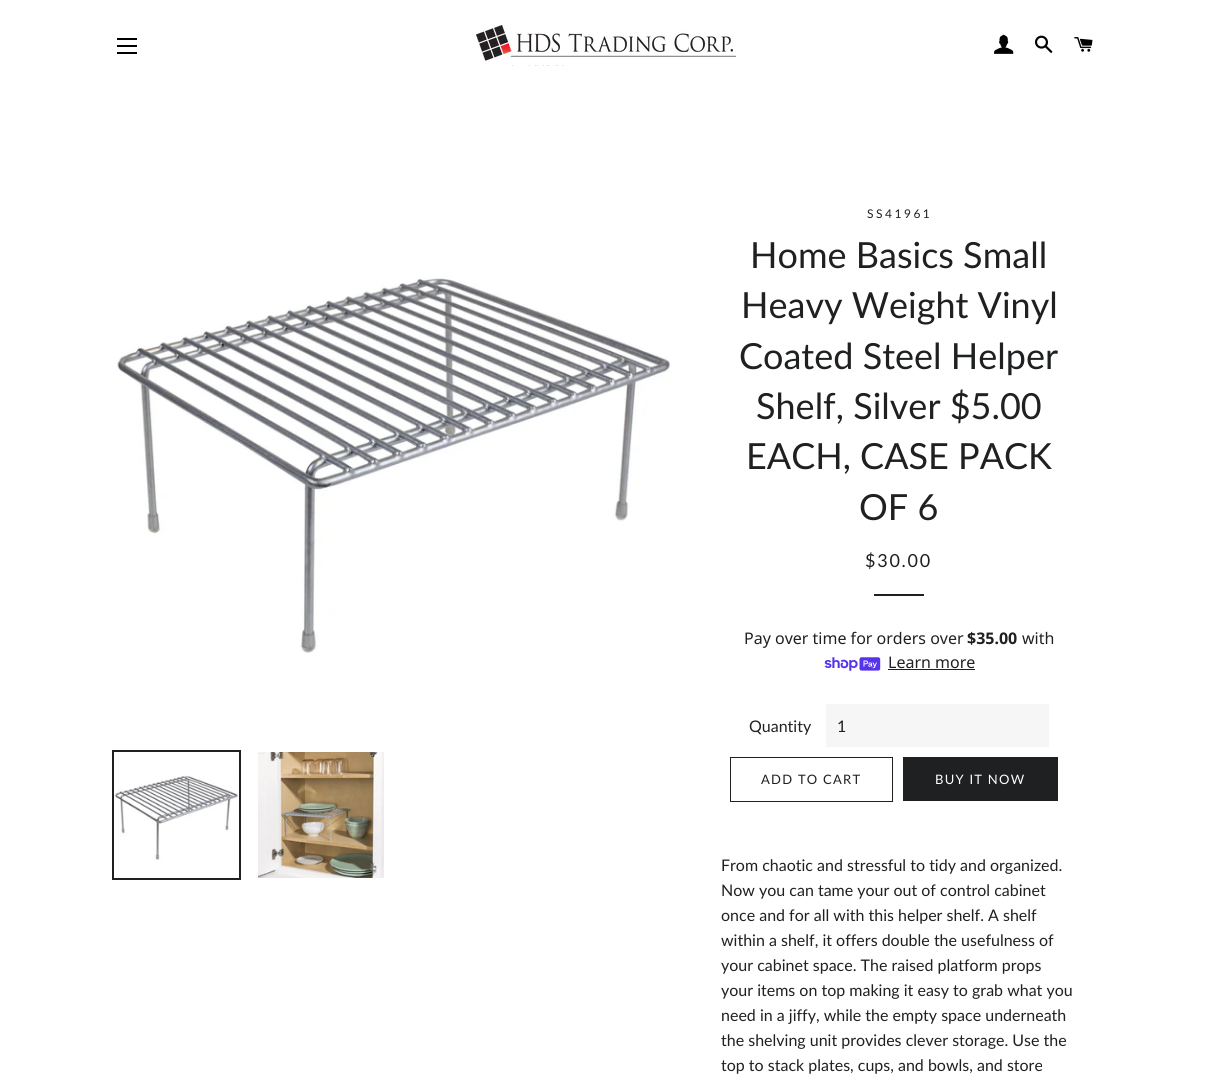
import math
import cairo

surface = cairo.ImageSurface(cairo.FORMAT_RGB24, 1213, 1085)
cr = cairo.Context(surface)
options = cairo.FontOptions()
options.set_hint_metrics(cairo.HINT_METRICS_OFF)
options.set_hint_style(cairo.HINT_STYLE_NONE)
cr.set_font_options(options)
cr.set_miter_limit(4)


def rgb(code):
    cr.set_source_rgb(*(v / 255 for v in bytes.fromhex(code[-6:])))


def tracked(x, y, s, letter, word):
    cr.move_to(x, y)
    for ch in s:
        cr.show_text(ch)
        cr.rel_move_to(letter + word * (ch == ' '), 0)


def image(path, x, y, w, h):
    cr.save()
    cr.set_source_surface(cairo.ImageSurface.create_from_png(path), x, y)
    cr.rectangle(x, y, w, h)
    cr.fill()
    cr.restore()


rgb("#ffffff")
cr.paint()
for x, y, w, h, color in [
    (117, 38, 20, 2, "#000000"),
    (117, 45, 20, 2, "#000000"),
    (117, 52, 20, 2, "#000000"),
]:
    rgb(color)
    cr.rectangle(x, y, w, h)
    cr.fill()
image("img/1.png", 476, 25, 260, 41)
image("img/2.png", 994, 34, 20, 20)
image("img/3.png", 1035, 35, 18, 18)
image("img/4.png", 1074, 37, 19, 15)
image("img/5.png", 112, 170, 564, 565)
cr.rectangle(113, 751, 127, 128)
rgb("#1f2021")
cr.stroke()
image("img/6.png", 114, 775, 124, 85)
image("img/7.png", 258, 752, 126, 126)
cr.rectangle(874, 594, 50, 2)
cr.fill()
image("img/8.png", 824, 657, 57, 14)
cr.rectangle(888, 669, 87, 1)
cr.fill()
rgb("#f6f6f6")
cr.rectangle(826, 704, 223, 43)
cr.fill()
cr.rectangle(730.5, 757.5, 162, 44)
rgb("#1f2021")
cr.set_line_width(1)
cr.stroke()
cr.rectangle(903, 757, 155, 44)
cr.fill()
cr.select_font_face("Lato")
cr.set_font_size(12)
tracked(867, 218, "SS41961", 2.5, 0)
cr.set_font_size(36)
for x, y, s in [
    (750, 268, "Home Basics Small"),
    (741, 318, "Heavy Weight Vinyl"),
    (739, 369, "Coated Steel Helper"),
    (756, 419, "Shelf, Silver $5.00"),
    (746, 469, "EACH, CASE PACK"),
    (859, 520, "OF 6"),
]:
    cr.move_to(x, y)
    cr.show_text(s)
cr.set_font_size(18)
tracked(865, 567, "$30.00", 1.75, 0)
cr.select_font_face("Noto Sans")
cr.set_font_size(16)
cr.move_to(744, 644)
cr.show_text("Pay over time for orders over")
cr.select_font_face("Noto Sans", cairo.FONT_SLANT_NORMAL, cairo.FONT_WEIGHT_BOLD)
cr.move_to(967, 644)
cr.show_text("$35.00")
cr.select_font_face("Noto Sans")
cr.move_to(1022, 644)
cr.show_text("with")
cr.move_to(888, 668)
cr.show_text("Learn more")
cr.select_font_face("Lato")
cr.move_to(749, 732)
cr.show_text("Quantity")
tracked(837, 732, "1", 2, 0)
cr.set_font_size(13)
tracked(761, 784, "ADD TO CART", 1.25, 0)
rgb("#ffffff")
tracked(935, 784, "BUY IT NOW", 1.25, 0)
cr.set_font_size(16)
rgb("#1f2021")
for x, y, s in [
    (721, 871, "From chaotic and stressful to tidy and organized."),
    (721, 896, "Now you can tame your out of control cabinet"),
    (721, 921, "once and for all with this helper shelf. A shelf"),
    (721, 946, "within a shelf, it offers double the usefulness of"),
    (721, 971, "your cabinet space. The raised platform props"),
    (721, 996, "your items on top making it easy to grab what you"),
    (721, 1021, "need in a jiffy, while the empty space underneath"),
    (721, 1046, "the shelving unit provides clever storage. Use the"),
    (721, 1071, "top to stack plates, cups, and bowls, and store"),
]:
    cr.move_to(x, y)
    cr.show_text(s)
surface.write_to_png("page.png")
